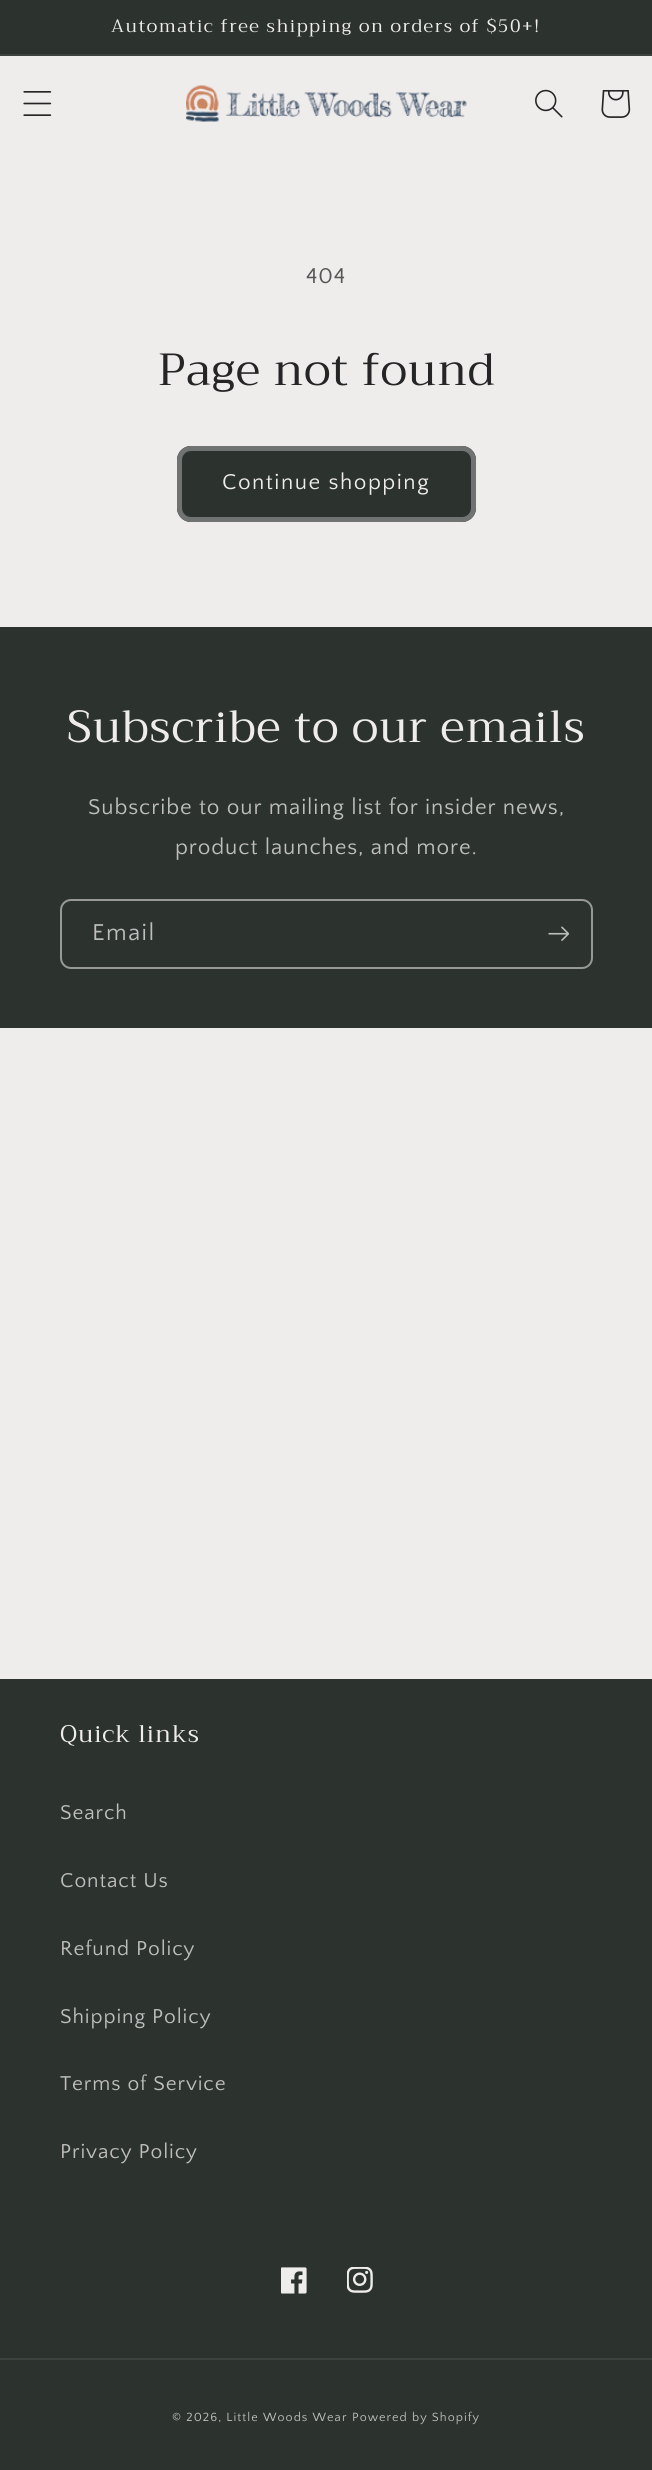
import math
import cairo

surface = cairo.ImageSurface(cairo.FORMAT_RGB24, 652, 2470)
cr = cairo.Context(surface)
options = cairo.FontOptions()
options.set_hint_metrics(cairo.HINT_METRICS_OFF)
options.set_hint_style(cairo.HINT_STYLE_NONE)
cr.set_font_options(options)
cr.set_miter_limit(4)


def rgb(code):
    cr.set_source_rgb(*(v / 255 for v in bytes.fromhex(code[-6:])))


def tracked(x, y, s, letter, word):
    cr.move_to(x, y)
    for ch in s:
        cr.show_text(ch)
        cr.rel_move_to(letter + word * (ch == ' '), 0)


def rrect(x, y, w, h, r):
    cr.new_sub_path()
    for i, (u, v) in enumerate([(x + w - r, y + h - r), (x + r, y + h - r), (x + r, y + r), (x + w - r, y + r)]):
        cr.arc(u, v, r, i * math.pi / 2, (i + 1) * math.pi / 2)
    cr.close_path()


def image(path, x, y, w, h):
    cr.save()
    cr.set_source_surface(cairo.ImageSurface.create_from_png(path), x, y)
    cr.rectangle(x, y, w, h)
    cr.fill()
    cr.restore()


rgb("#efecec")
cr.paint()
rgb("#2c332f")
cr.rectangle(0, 0, 652, 54)
cr.fill()
rgb("#3c423e")
cr.rectangle(0, 54, 652, 2)
cr.fill()
image("img/1.png", 23, 91, 29, 25)
image("img/2.png", 186, 85, 281, 37)
image("img/3.png", 535, 89, 28, 29)
image("img/4.png", 601, 90, 30, 28)
rgb("#2c332f")
rrect(177, 446, 299, 76, 14)
cr.fill()
rrect(179.5, 448.5, 294, 71, 11.5)
cr.set_line_width(5)
cr.stroke()
rrect(179.5, 448.5, 294, 71, 11.5)
cr.set_source_rgba(0.937, 0.925, 0.925, 0.35)
cr.stroke()
rgb("#2c332f")
cr.rectangle(0, 627, 652, 401)
cr.fill()
rrect(61, 900, 531, 68, 10)
rgb("#979997")
cr.set_line_width(2)
cr.stroke()
image("img/5.png", 548, 926, 22, 15)
rgb("#2c332f")
cr.rectangle(0, 1679, 652, 791)
cr.fill()
image("img/6.png", 281, 2267, 26, 27)
image("img/7.png", 347, 2267, 26, 26)
rgb("#3c423e")
cr.rectangle(0, 2358, 652, 2)
cr.fill()
cr.select_font_face("Trirong")
cr.set_font_size(18)
rgb("#efecec")
tracked(111, 32, "Automatic free shipping on orders of $50+!", 1.5, 0)
cr.select_font_face("Quattrocento Sans")
cr.set_font_size(22.5)
rgb("#585757")
tracked(306, 283, "404", 0.9, 0)
cr.select_font_face("Trirong")
cr.set_font_size(45)
rgb("#252525")
tracked(158, 385, "Page not found", 0.9, 0)
cr.select_font_face("Quattrocento Sans")
cr.set_font_size(22.5)
rgb("#efecec")
tracked(222, 489, "Continue shopping", 1.5, 0)
cr.select_font_face("Trirong")
cr.set_font_size(45)
tracked(67, 742, "Subscribe to our emails", 0.9, 0)
cr.select_font_face("Quattrocento Sans")
cr.set_font_size(22.5)
rgb("#bebebd")
tracked(88, 814, "Subscribe to our mailing list for insider news,", 0.9, 0)
tracked(175, 854, "product launches, and more.", 0.9, 0)
cr.set_font_size(24)
tracked(92, 940, "Email", 1.5, 0)
cr.select_font_face("Trirong")
rgb("#efecec")
tracked(60, 1742, "Quick links", 0.9, 0)
cr.select_font_face("Quattrocento Sans")
cr.set_font_size(21)
rgb("#bebebd")
for x, y, s in [
    (60, 1819, "Search"),
    (60, 1887, "Contact Us"),
    (60, 1955, "Refund Policy"),
    (60, 2023, "Shipping Policy"),
    (60, 2090, "Terms of Service"),
    (60, 2158, "Privacy Policy"),
]:
    tracked(x, y, s, 0.9, 0)
cr.set_font_size(12.5)
tracked(172, 2421, "© 2026, Little Woods Wear", 1.05, 0)
tracked(352, 2421, "Powered by Shopify", 1.05, 0)
surface.write_to_png("page.png")
